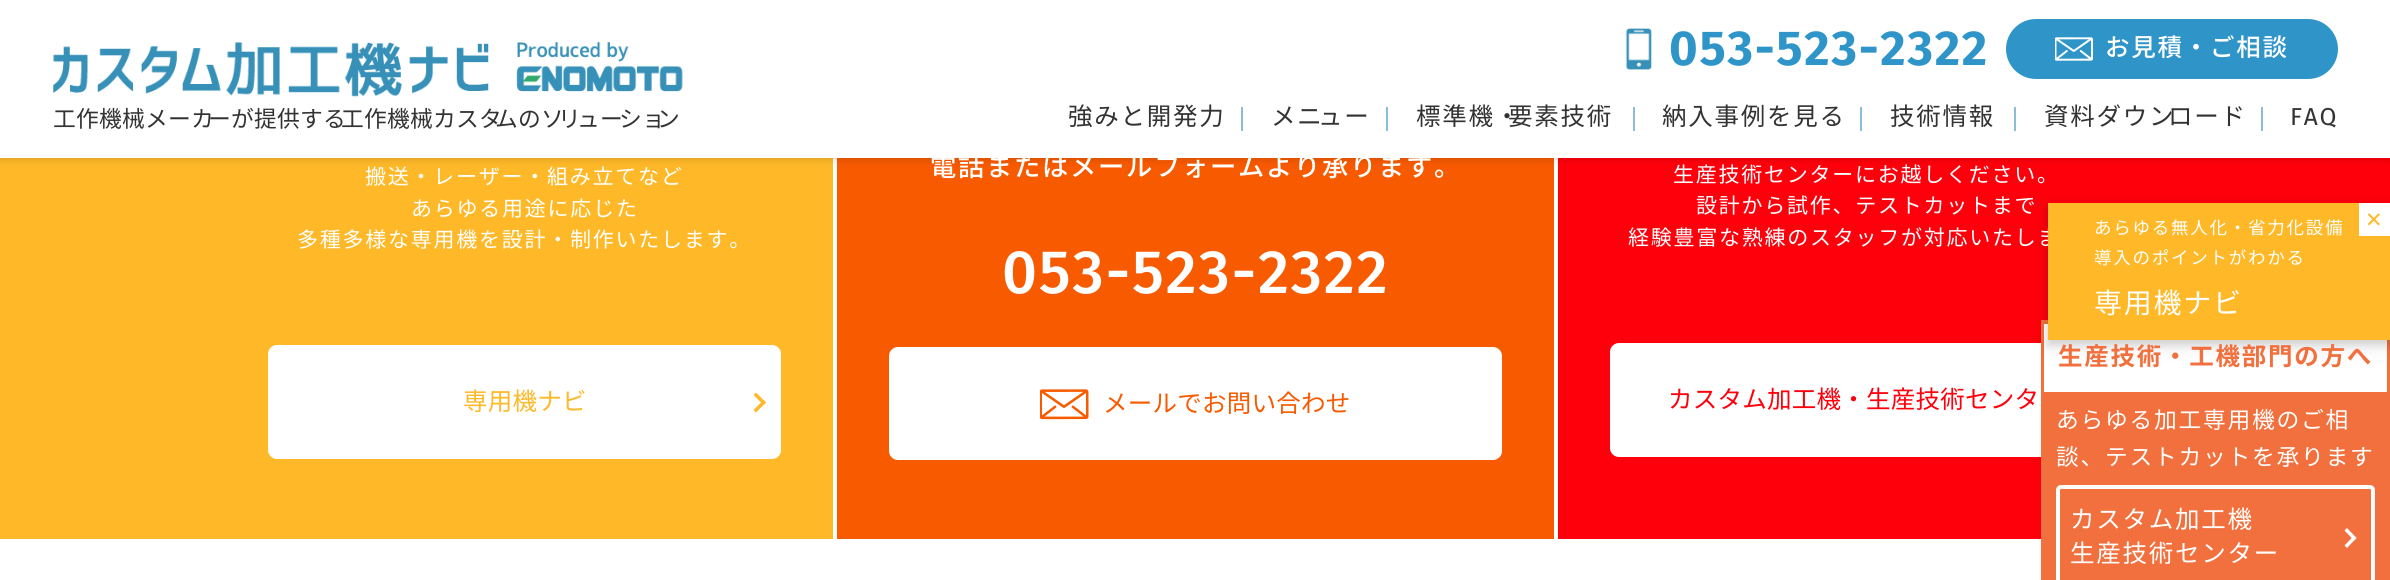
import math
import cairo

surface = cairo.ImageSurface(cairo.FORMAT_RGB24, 2390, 580)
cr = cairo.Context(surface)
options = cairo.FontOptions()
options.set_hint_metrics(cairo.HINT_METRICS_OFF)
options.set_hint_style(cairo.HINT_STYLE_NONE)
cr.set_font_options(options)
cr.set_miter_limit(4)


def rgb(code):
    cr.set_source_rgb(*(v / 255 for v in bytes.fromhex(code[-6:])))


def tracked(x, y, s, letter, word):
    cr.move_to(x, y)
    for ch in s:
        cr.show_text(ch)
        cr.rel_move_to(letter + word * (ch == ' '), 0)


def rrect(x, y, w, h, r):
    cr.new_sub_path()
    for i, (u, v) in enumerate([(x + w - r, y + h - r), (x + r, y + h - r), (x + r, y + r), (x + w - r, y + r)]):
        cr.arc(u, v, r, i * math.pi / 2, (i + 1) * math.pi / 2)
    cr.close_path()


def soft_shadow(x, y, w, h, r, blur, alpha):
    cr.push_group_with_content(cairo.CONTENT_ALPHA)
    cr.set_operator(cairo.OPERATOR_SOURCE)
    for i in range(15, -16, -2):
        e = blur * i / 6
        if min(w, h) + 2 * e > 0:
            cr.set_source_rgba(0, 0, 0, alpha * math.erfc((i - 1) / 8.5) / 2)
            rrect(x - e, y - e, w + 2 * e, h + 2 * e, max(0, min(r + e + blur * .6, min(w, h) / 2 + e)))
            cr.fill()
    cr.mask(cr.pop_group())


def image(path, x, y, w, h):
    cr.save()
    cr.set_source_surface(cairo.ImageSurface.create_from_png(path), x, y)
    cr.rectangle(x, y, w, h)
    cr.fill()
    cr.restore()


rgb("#ffffff")
cr.paint()
for x, y, w, h, color in [
    (0, 158, 833, 381, "#ffb928"),
    (837, 158, 717, 381, "#f85a00"),
    (1558, 158, 832, 381, "#fe000b"),
]:
    rgb(color)
    cr.rectangle(x, y, w, h)
    cr.fill()
rgb("#000000")
soft_shadow(0, 0, 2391, 158, 0, 4.5, 0.2)
rgb("#ffffff")
cr.rectangle(0, 0, 2390, 158)
cr.fill()
image("img/1.png", 53, 42, 630, 55)
image("img/2.png", 1625, 28, 27, 42)
rgb("#2f95c9")
rrect(2006, 19, 332, 60, 30)
cr.fill()
image("img/3.png", 2055, 37, 38, 24)
for x, y, w, h, color in [
    (1241, 107, 2, 24, "#8bbdd7"),
    (1386, 107, 2, 24, "#8bbdd7"),
    (1633, 107, 2, 24, "#8bbdd7"),
    (1860, 107, 2, 24, "#8bbdd7"),
    (2014, 107, 2, 24, "#8bbdd7"),
    (2261, 107, 2, 24, "#8bbdd7"),
]:
    rgb(color)
    cr.rectangle(x, y, w, h)
    cr.fill()
rgb("#ffffff")
rrect(268, 345, 513, 114, 9)
cr.fill()
rgb("#ffb928")
cr.new_path()
cr.move_to(756, 392.5)
cr.line_to(766, 402.5)
cr.line_to(763.5, 405)
cr.line_to(753.5, 395)
cr.close_path()
cr.fill()
cr.new_path()
cr.move_to(763.5, 400)
cr.line_to(766, 402.5)
cr.line_to(756, 412.5)
cr.line_to(753.5, 410)
cr.close_path()
cr.fill()
rgb("#ffffff")
rrect(889, 347, 613, 113, 9)
cr.fill()
image("img/4.png", 1040, 389, 49, 31)
rrect(1610, 343, 513, 114, 9)
cr.fill()
rgb("#f1703d")
cr.rectangle(2041, 320, 349, 260)
cr.fill()
rgb("#ffffff")
cr.rectangle(2044, 324, 343, 68)
cr.fill()
rgb("#000000")
soft_shadow(2048, 208, 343, 137, 0, 9, 0.1)
soft_shadow(2048, 208, 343, 137, 0, 4.5, 0.12)
rrect(2058, 487, 315, 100, 3)
rgb("#ffffff")
cr.set_line_width(4)
cr.stroke()
cr.new_path()
cr.move_to(2347, 528)
cr.line_to(2356.5, 538)
cr.line_to(2354, 540.5)
cr.line_to(2344.5, 530.5)
cr.close_path()
cr.fill()
cr.new_path()
cr.move_to(2354, 535.5)
cr.line_to(2356.5, 538)
cr.line_to(2347, 548)
cr.line_to(2344.5, 545.5)
cr.close_path()
cr.fill()
cr.select_font_face("Noto Sans JP")
cr.set_font_size(22.75)
rgb("#333333")
tracked(53, 127, "工作機械メーカ", 0.25, 0)
tracked(208, 127, "ーが提供する", 0.25, 0)
tracked(341, 127, "工作機械カスタ", 0.25, 0)
tracked(495, 127, "ムのソ", 0.25, 0)
tracked(558, 127, "リ", 0.25, 0)
tracked(577, 127, "ュー", 0.25, 0)
tracked(619, 127, "ショ", 0.25, 0)
tracked(657, 127, "ン", 0.25, 0)
cr.select_font_face("Fira Sans", cairo.FONT_SLANT_NORMAL, cairo.FONT_WEIGHT_BOLD)
cr.set_font_size(49)
rgb("#2f95c9")
tracked(1669, 65, "053-523-2322", 1.75, 0)
cr.select_font_face("Noto Sans JP Medium")
cr.set_font_size(24.5)
rgb("#ffffff")
tracked(2105, 56, "お見積・ご相談", 1.75, 0)
cr.select_font_face("Noto Sans JP")
rgb("#333333")
for x, y, s in [
    (1068, 125, "強みと開発力"),
    (1271, 125, "メニ"),
    (1318, 125, "ュー"),
    (1416, 125, "標準機・"),
    (1508, 125, "要素技術"),
    (1662, 125, "納入事例を見る"),
    (1890, 125, "技術情報"),
    (2044, 125, "資料ダウン"),
    (2168, 125, "ロード"),
]:
    tracked(x, y, s, 1.75, 0)
cr.select_font_face("Fira Sans")
tracked(2290, 125, "FAQ", 1.75, 0)
cr.select_font_face("Noto Sans JP")
cr.set_font_size(21)
rgb("#ffffff")
for x, y, s in [
    (365, 184, "搬送・レーザー・組み立てなど"),
    (411, 216, "あらゆる用途に応じた"),
    (297, 247, "多種多様な専用機を設計・制作いたします。"),
]:
    tracked(x, y, s, 1.75, 0)
cr.set_font_size(24.5)
rgb("#ffb928")
tracked(463, 410, "専用機ナビ", 0.25, 0)
cr.select_font_face("Noto Sans JP Medium")
cr.set_font_size(26.25)
rgb("#ffffff")
tracked(930, 176, "電話またはメールフォームより承ります。", 1.75, 0)
cr.select_font_face("Fira Sans Medium")
cr.set_font_size(61.25)
tracked(1002, 293, "053-523-2322", 1.75, 0)
cr.select_font_face("Noto Sans JP")
cr.set_font_size(24.5)
rgb("#f85a00")
tracked(1103, 412, "メールでお問い合わせ", 0.25, 0)
cr.set_font_size(21)
rgb("#ffffff")
for x, y, s in [
    (1673, 182, "生産技術センターにお越しください。"),
    (1696, 213, "設計から試作、テストカットまで"),
    (1628, 245, "経験豊富な熟練のスタッフが対応いたしま"),
]:
    tracked(x, y, s, 1.75, 0)
cr.set_font_size(24.5)
rgb("#fe000b")
tracked(1668, 408, "カスタム加工機・生産技術センタ", 0.25, 0)
rgb("#ffb928")
cr.rectangle(2048, 203, 342, 137)
cr.fill()
cr.set_font_size(17.5)
rgb("#ffffff")
tracked(2094, 234, "あらゆる無人化・省力化設備", 1.75, 0)
tracked(2094, 264, "導入のポイントがわかる", 1.75, 0)
cr.set_font_size(28)
tracked(2094, 313, "専用機ナビ", 1.75, 0)
cr.rectangle(2359, 203, 31, 33)
cr.fill()
cr.select_font_face("DejaVu Sans")
cr.set_font_size(21)
rgb("#ffb928")
tracked(2365, 227, "✕", 1.75, 0)
cr.select_font_face("Noto Sans JP", cairo.FONT_SLANT_NORMAL, cairo.FONT_WEIGHT_BOLD)
cr.set_font_size(24.5)
rgb("#f1703d")
tracked(2058, 365, "生産技術・工機部門の方へ", 1.75, 0)
cr.select_font_face("Noto Sans JP")
cr.set_font_size(22.75)
rgb("#ffffff")
tracked(2056, 428, "あらゆる加工専用機のご相", 1.75, 0)
tracked(2056, 465, "談、テストカットを承ります", 1.75, 0)
cr.set_font_size(24.5)
tracked(2070, 528, "カスタム加工機", 1.75, 0)
tracked(2070, 562, "生産技術センター", 1.75, 0)
surface.write_to_png("page.png")
